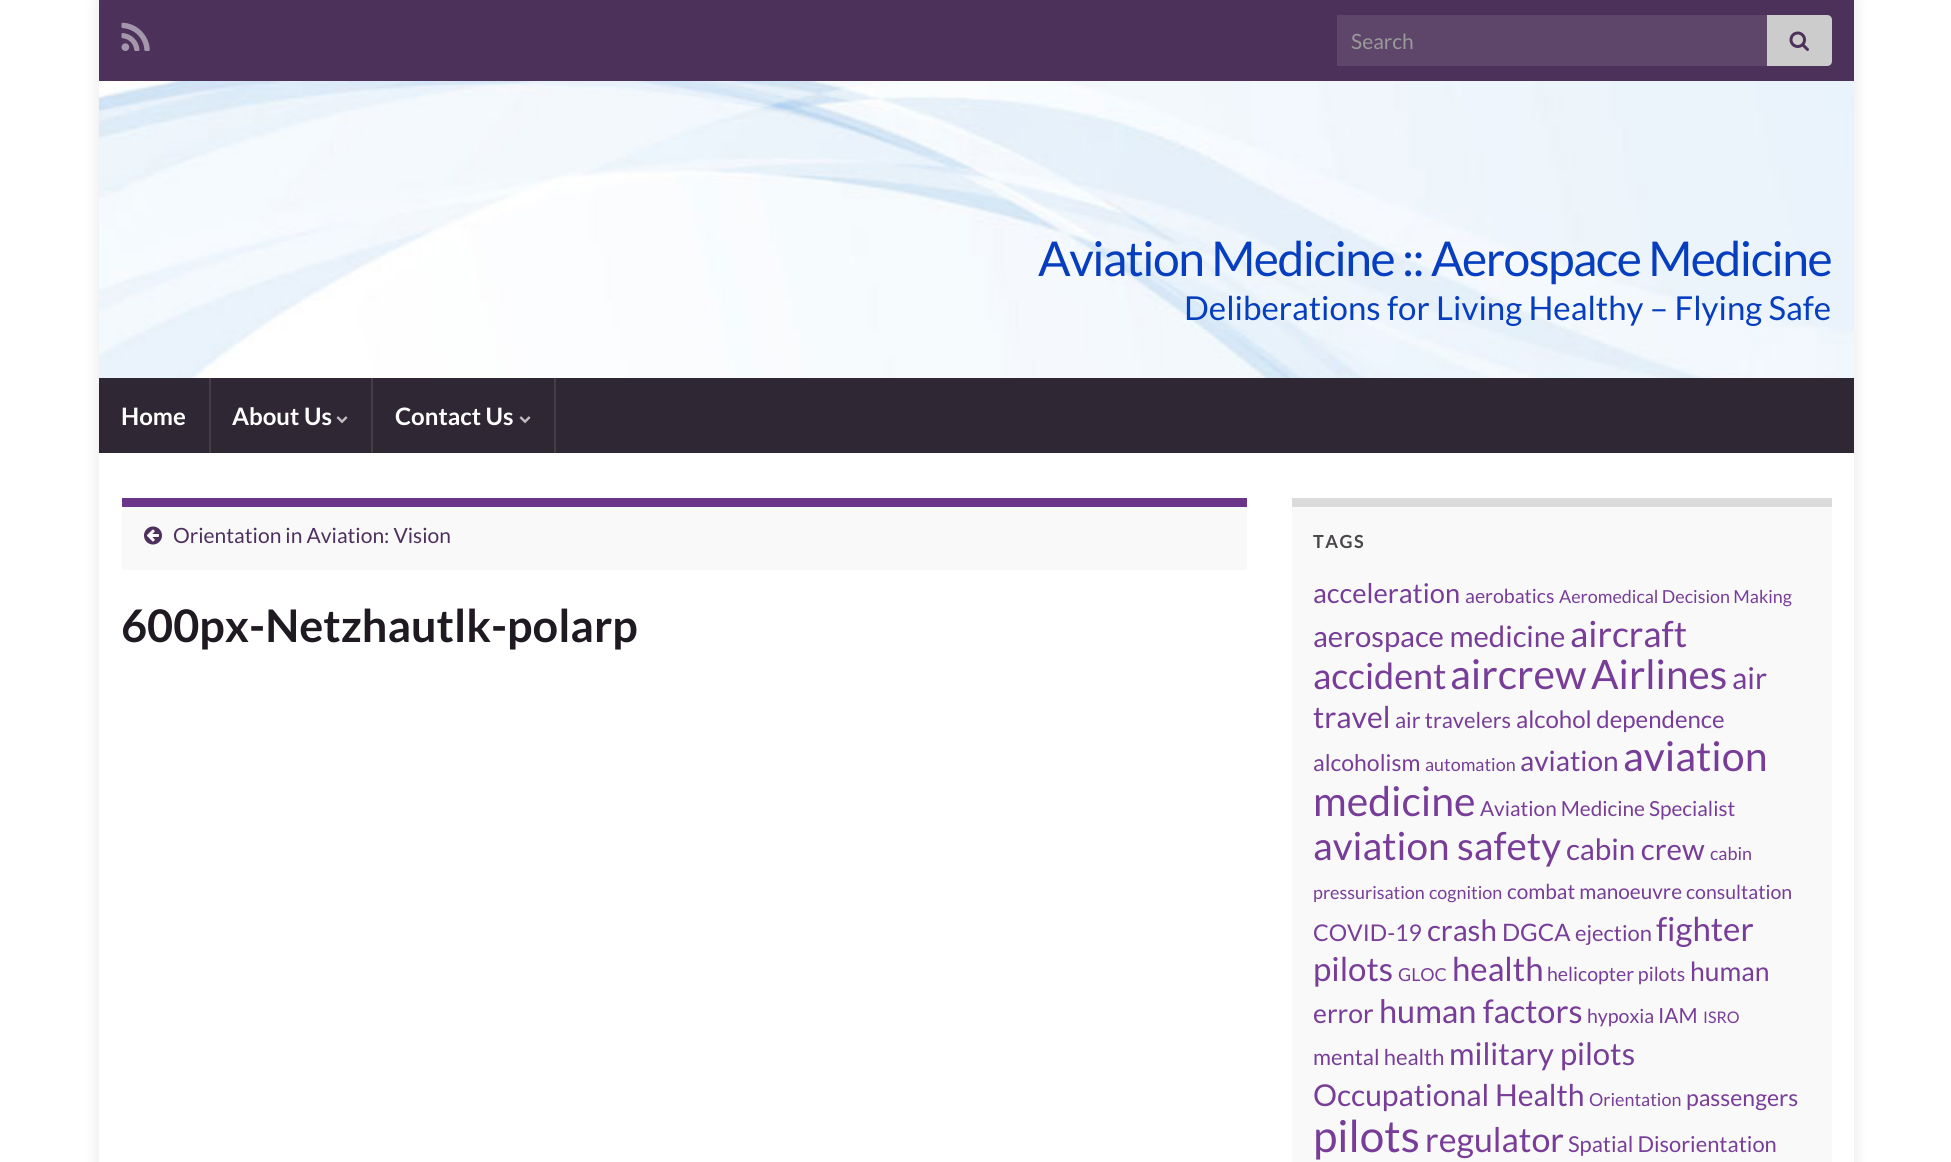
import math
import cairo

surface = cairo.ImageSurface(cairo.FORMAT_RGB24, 1951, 1162)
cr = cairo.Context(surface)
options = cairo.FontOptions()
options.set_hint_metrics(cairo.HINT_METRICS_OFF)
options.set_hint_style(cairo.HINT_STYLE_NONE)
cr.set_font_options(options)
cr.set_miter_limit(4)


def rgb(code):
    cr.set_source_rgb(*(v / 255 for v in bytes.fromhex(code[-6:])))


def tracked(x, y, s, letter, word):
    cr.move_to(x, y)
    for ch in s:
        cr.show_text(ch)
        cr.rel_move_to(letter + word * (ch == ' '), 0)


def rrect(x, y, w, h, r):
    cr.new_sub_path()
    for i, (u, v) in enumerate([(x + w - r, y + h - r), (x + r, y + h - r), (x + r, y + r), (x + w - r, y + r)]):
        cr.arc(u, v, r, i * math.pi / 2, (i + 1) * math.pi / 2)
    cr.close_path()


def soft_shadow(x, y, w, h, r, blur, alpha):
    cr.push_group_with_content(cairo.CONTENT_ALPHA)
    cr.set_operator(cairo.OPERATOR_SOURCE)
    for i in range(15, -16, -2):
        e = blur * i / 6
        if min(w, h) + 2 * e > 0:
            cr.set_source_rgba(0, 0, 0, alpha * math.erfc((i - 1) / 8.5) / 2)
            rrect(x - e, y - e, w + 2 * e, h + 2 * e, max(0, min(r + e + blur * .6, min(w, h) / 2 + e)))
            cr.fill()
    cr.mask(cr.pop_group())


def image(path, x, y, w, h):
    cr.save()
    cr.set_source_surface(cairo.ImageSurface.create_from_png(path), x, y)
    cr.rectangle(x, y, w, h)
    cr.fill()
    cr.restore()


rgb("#ffffff")
cr.paint()
cr.save()
cr.set_fill_rule(cairo.FILL_RULE_EVEN_ODD)
cr.new_path()
cr.move_to(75, 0)
cr.line_to(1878, 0)
cr.line_to(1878, 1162)
cr.line_to(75, 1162)
cr.close_path()
cr.move_to(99, 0)
cr.line_to(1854, 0)
cr.line_to(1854, 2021)
cr.line_to(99, 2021)
cr.close_path()
cr.clip()
rgb("#000000")
soft_shadow(99, 0, 1755, 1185, 0, 7.5, 0.1)
cr.restore()
rgb("#4c315a")
cr.rectangle(99, 0, 1755, 81)
cr.fill()
image("img/1.png", 121, 22, 29, 29)
rgb("#5e466b")
cr.rectangle(1337, 15, 430, 51)
cr.fill()
rgb("#cccccc")
cr.new_path()
cr.move_to(1767, 15)
cr.line_to(1827, 15)
cr.curve_to(1830, 15, 1832, 17, 1832, 20)
cr.line_to(1832, 61)
cr.curve_to(1832, 64, 1830, 66, 1827, 66)
cr.line_to(1767, 66)
cr.close_path()
cr.fill()
image("img/2.png", 1789, 31, 20, 20)
image("img/3.png", 99, 81, 1755, 297)
for x, y, w, h, color in [
    (99, 378, 1755, 75, "#2f2733"),
    (209, 378, 2, 75, "#443d47"),
    (371, 378, 2, 75, "#443d47"),
]:
    rgb(color)
    cr.rectangle(x, y, w, h)
    cr.fill()
image("img/4.png", 336, 416, 12, 8)
cr.rectangle(554, 378, 2, 75)
cr.fill()
image("img/4.png", 519, 416, 12, 8)
rgb("#f9f9f9")
cr.rectangle(122, 507, 1125, 63)
cr.fill()
rgb("#6b3589")
cr.rectangle(122, 498, 1125, 9)
cr.fill()
image("img/5.png", 144, 526, 18, 19)
rgb("#f9f9f9")
cr.rectangle(1292, 507, 540, 655)
cr.fill()
rgb("#dbdbdb")
cr.rectangle(1292, 498, 540, 9)
cr.fill()
cr.select_font_face("Lato")
cr.set_font_size(21)
rgb("#999999")
cr.move_to(1351, 49)
cr.show_text("Search")
cr.set_font_size(48)
rgb("#073ebf")
tracked(1038, 276, "Aviation Medicine :: Aerospace Medicine", -1.5, 0)
cr.set_font_size(33)
cr.move_to(1184, 320)
cr.show_text("Deliberations for Living Healthy – Flying Safe")
cr.select_font_face("Lato", cairo.FONT_SLANT_NORMAL, cairo.FONT_WEIGHT_BOLD)
cr.set_font_size(24)
rgb("#ffffff")
for x, y, s in [
    (121, 425, "Home"),
    (232, 425, "About Us"),
    (395, 425, "Contact Us"),
]:
    cr.move_to(x, y)
    cr.show_text(s)
cr.select_font_face("Lato")
cr.set_font_size(21)
rgb("#4e305e")
cr.move_to(173, 543)
cr.show_text("Orientation in Aviation: Vision")
cr.select_font_face("Lato", cairo.FONT_SLANT_NORMAL, cairo.FONT_WEIGHT_BOLD)
cr.set_font_size(45)
rgb("#1f1a22")
cr.move_to(121, 642)
cr.show_text("600px-Netzhautlk-polarp")
cr.set_font_size(18)
rgb("#4a474b")
tracked(1313, 548, "TAGS", 1.5, 0)
cr.select_font_face("Lato")
cr.set_font_size(27.25)
rgb("#783d98")
cr.move_to(1313, 603)
cr.show_text("acceleration")
cr.set_font_size(19.5)
cr.move_to(1465, 603)
cr.show_text("aerobatics")
cr.set_font_size(17.9)
cr.move_to(1559, 603)
cr.show_text("Aeromedical Decision Making")
cr.set_font_size(29.25)
cr.move_to(1313, 647)
cr.show_text("aerospace medicine")
cr.set_font_size(36)
cr.move_to(1570, 647)
cr.show_text("aircraft")
cr.move_to(1313, 689)
cr.show_text("accident")
cr.set_font_size(41)
cr.move_to(1450, 689)
cr.show_text("aircrew")
cr.set_font_size(40.5)
cr.move_to(1591, 689)
cr.show_text("Airlines")
cr.set_font_size(30.1)
cr.move_to(1732, 689)
cr.show_text("air")
cr.move_to(1313, 728)
cr.show_text("travel")
cr.set_font_size(21.9)
cr.move_to(1395, 728)
cr.show_text("air travelers")
cr.set_font_size(24)
cr.move_to(1516, 728)
cr.show_text("alcohol dependence")
cr.set_font_size(23)
cr.move_to(1313, 771)
cr.show_text("alcoholism")
cr.set_font_size(17.9)
cr.move_to(1425, 771)
cr.show_text("automation")
cr.set_font_size(28)
cr.move_to(1520, 771)
cr.show_text("aviation")
cr.set_font_size(41)
cr.move_to(1623, 771)
cr.show_text("aviation")
cr.move_to(1313, 816)
cr.show_text("medicine")
cr.set_font_size(20.75)
cr.move_to(1480, 816)
cr.show_text("Aviation Medicine Specialist")
cr.set_font_size(38.75)
cr.move_to(1313, 860)
cr.show_text("aviation safety")
cr.set_font_size(29.5)
cr.move_to(1566, 860)
cr.show_text("cabin crew")
cr.set_font_size(17.9)
for x, y, s in [
    (1710, 860, "cabin"),
    (1313, 899, "pressurisation"),
    (1429, 899, "cognition"),
]:
    cr.move_to(x, y)
    cr.show_text(s)
cr.set_font_size(20.75)
cr.move_to(1507, 899)
cr.show_text("combat manoeuvre")
cr.set_font_size(19.5)
cr.move_to(1686, 899)
cr.show_text("consultation")
cr.set_font_size(23)
cr.move_to(1313, 941)
cr.show_text("COVID-19")
cr.set_font_size(29.5)
cr.move_to(1427, 941)
cr.show_text("crash")
cr.set_font_size(24)
cr.move_to(1502, 941)
cr.show_text("DGCA")
cr.set_font_size(21.9)
cr.move_to(1575, 941)
cr.show_text("ejection")
cr.set_font_size(33)
cr.move_to(1656, 941)
cr.show_text("fighter")
cr.move_to(1313, 981)
cr.show_text("pilots")
cr.set_font_size(17.9)
cr.move_to(1398, 981)
cr.show_text("GLOC")
cr.set_font_size(33)
cr.move_to(1452, 981)
cr.show_text("health")
cr.set_font_size(19.5)
cr.move_to(1547, 981)
cr.show_text("helicopter pilots")
cr.set_font_size(26.5)
cr.move_to(1690, 981)
cr.show_text("human")
cr.move_to(1313, 1023)
cr.show_text("error")
cr.set_font_size(32.5)
cr.move_to(1379, 1023)
cr.show_text("human factors")
cr.set_font_size(19.5)
cr.move_to(1587, 1023)
cr.show_text("hypoxia")
cr.set_font_size(20.75)
cr.move_to(1658, 1023)
cr.show_text("IAM")
cr.set_font_size(16)
cr.move_to(1703, 1023)
cr.show_text("ISRO")
cr.set_font_size(21.9)
cr.move_to(1313, 1065)
cr.show_text("mental health")
cr.set_font_size(31)
cr.move_to(1449, 1065)
cr.show_text("military pilots")
cr.set_font_size(30.1)
cr.move_to(1313, 1106)
cr.show_text("Occupational Health")
cr.set_font_size(17.9)
cr.move_to(1589, 1106)
cr.show_text("Orientation")
cr.set_font_size(23)
cr.move_to(1686, 1106)
cr.show_text("passengers")
cr.set_font_size(44)
cr.move_to(1313, 1152)
cr.show_text("pilots")
cr.set_font_size(34)
cr.move_to(1425, 1152)
cr.show_text("regulator")
cr.set_font_size(21.9)
cr.move_to(1568, 1152)
cr.show_text("Spatial Disorientation")
surface.write_to_png("page.png")
